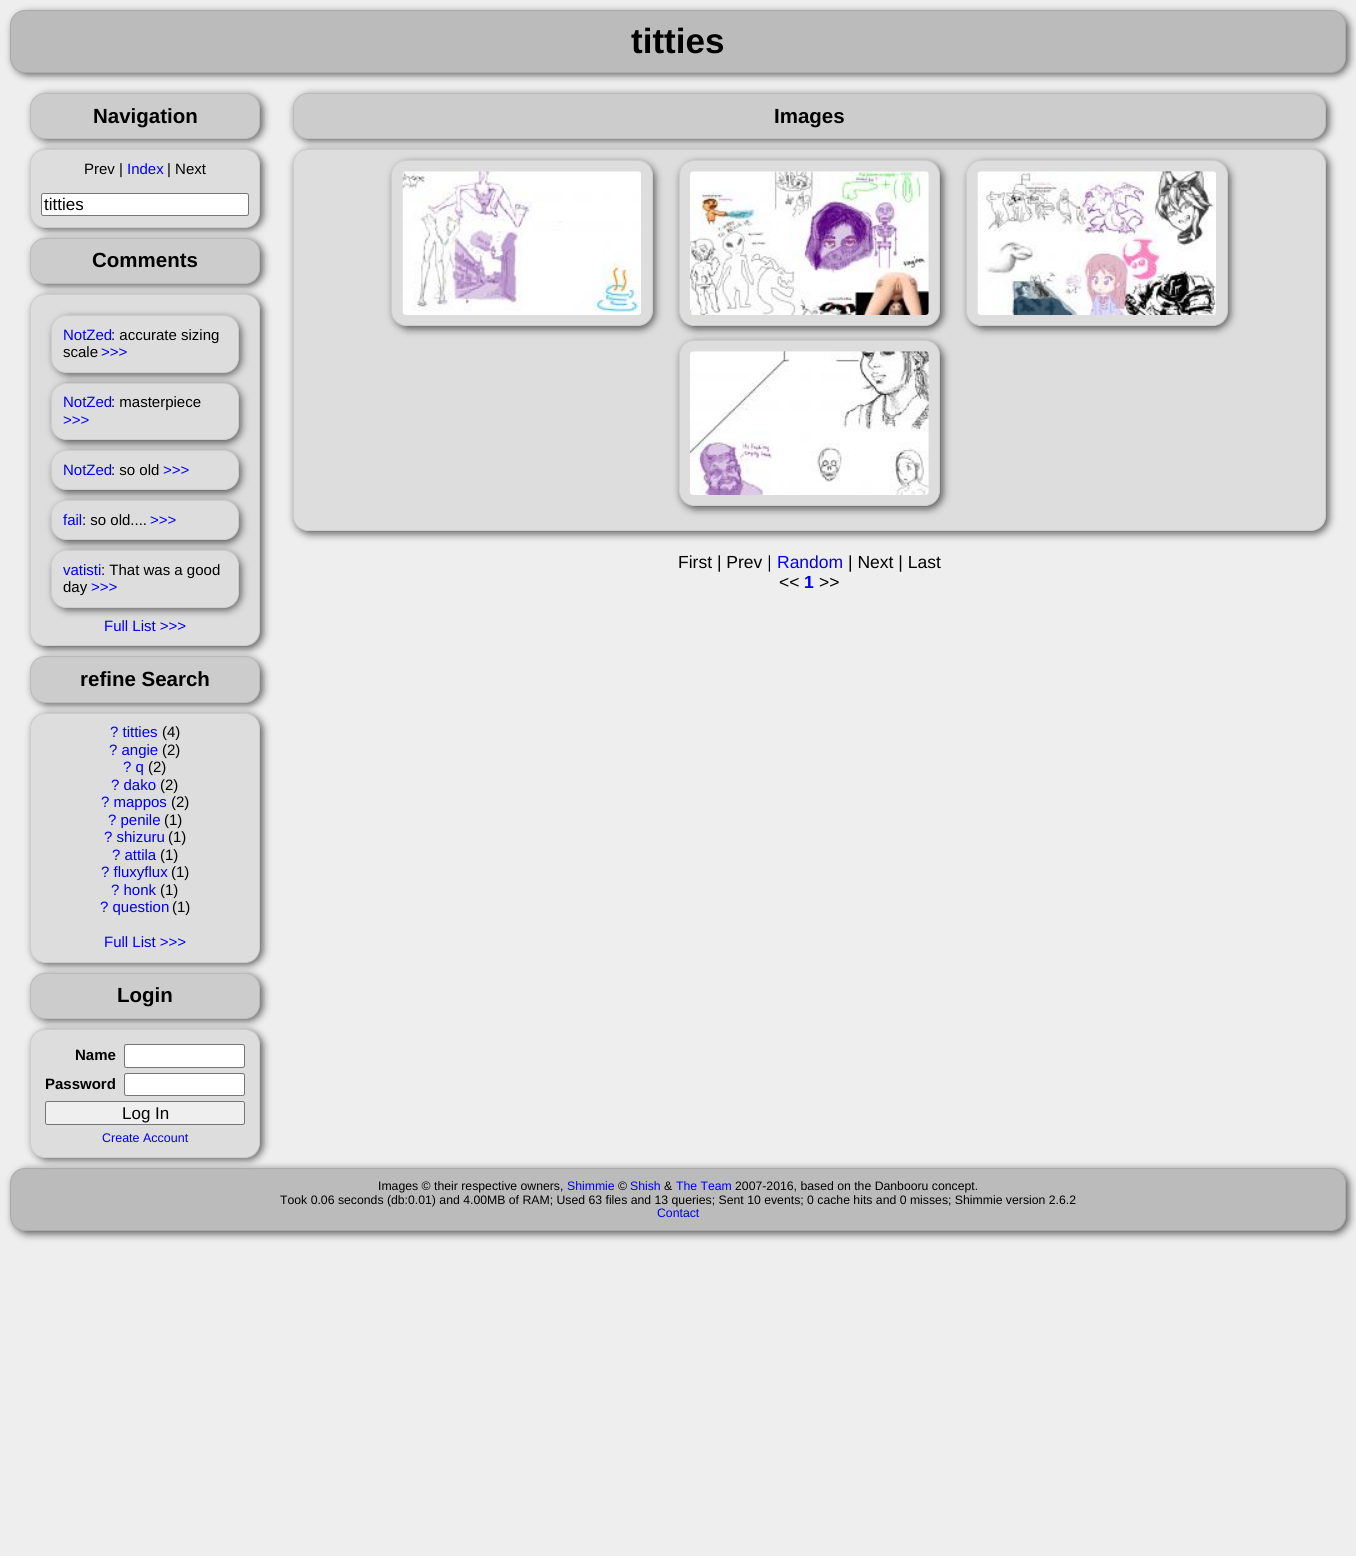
import math
import cairo

surface = cairo.ImageSurface(cairo.FORMAT_RGB24, 1356, 1556)
cr = cairo.Context(surface)
options = cairo.FontOptions()
options.set_hint_metrics(cairo.HINT_METRICS_OFF)
options.set_hint_style(cairo.HINT_STYLE_NONE)
cr.set_font_options(options)
cr.set_miter_limit(4)


def rgb(code):
    cr.set_source_rgb(*(v / 255 for v in bytes.fromhex(code[-6:])))


def rrect(x, y, w, h, r):
    cr.new_sub_path()
    for i, (u, v) in enumerate([(x + w - r, y + h - r), (x + r, y + h - r), (x + r, y + r), (x + w - r, y + r)]):
        cr.arc(u, v, r, i * math.pi / 2, (i + 1) * math.pi / 2)
    cr.close_path()


def soft_shadow(x, y, w, h, r, blur, alpha):
    cr.push_group_with_content(cairo.CONTENT_ALPHA)
    cr.set_operator(cairo.OPERATOR_SOURCE)
    for i in range(15, -16, -2):
        e = blur * i / 6
        if min(w, h) + 2 * e > 0:
            cr.set_source_rgba(0, 0, 0, alpha * math.erfc((i - 1) / 8.5) / 2)
            rrect(x - e, y - e, w + 2 * e, h + 2 * e, max(0, min(r + e + blur * .6, min(w, h) / 2 + e)))
            cr.fill()
    cr.mask(cr.pop_group())


def image(path, x, y, w, h):
    cr.save()
    cr.set_source_surface(cairo.ImageSurface.create_from_png(path), x, y)
    cr.rectangle(x, y, w, h)
    cr.fill()
    cr.restore()


rgb("#eeeeee")
cr.paint()
rgb("#000000")
soft_shadow(13, 13, 1336, 62, 15, 4, 0.6)
rgb("#bbbbbb")
rrect(10.5, 10.5, 1335, 62, 14.5)
cr.fill_preserve()
rgb("#aaaaaa")
cr.set_line_width(1)
cr.stroke()
rgb("#000000")
soft_shadow(33, 95, 230, 46, 15, 4, 0.6)
rgb("#cccccc")
rrect(30.5, 93.5, 229, 45, 14.5)
cr.fill_preserve()
rgb("#bbbbbb")
cr.stroke()
rgb("#000000")
soft_shadow(33, 240, 230, 46, 15, 4, 0.6)
rgb("#cccccc")
rrect(30.5, 238.5, 229, 45, 14.5)
cr.fill_preserve()
rgb("#bbbbbb")
cr.stroke()
rgb("#000000")
soft_shadow(33, 151, 230, 79, 15, 4, 0.6)
rgb("#dddddd")
rrect(30.5, 149.5, 229, 78, 14.5)
cr.fill_preserve()
rgb("#cccccc")
cr.stroke()
rgb("#ffffff")
rrect(41.5, 193.5, 207, 22, 2)
cr.fill_preserve()
rgb("#767676")
cr.stroke()
rgb("#000000")
soft_shadow(33, 659, 230, 46, 15, 4, 0.6)
rgb("#cccccc")
rrect(30.5, 656.5, 229, 46, 14.5)
cr.fill_preserve()
rgb("#bbbbbb")
cr.stroke()
rgb("#000000")
soft_shadow(33, 296, 230, 353, 15, 4, 0.6)
rgb("#dddddd")
rrect(30.5, 294.5, 229, 351, 14.5)
cr.fill_preserve()
rgb("#cccccc")
cr.stroke()
rgb("#000000")
soft_shadow(54, 318, 187, 57, 15, 4, 0.6)
rgb("#dddddd")
rrect(51.5, 315.5, 187, 57, 14.5)
cr.fill_preserve()
rgb("#cccccc")
cr.stroke()
rgb("#000000")
soft_shadow(54, 385, 187, 58, 15, 4, 0.6)
rgb("#dddddd")
rrect(51.5, 383.5, 187, 56, 14.5)
cr.fill_preserve()
rgb("#cccccc")
cr.stroke()
rgb("#000000")
soft_shadow(54, 453, 187, 40, 15, 4, 0.6)
rgb("#dddddd")
rrect(51.5, 450.5, 187, 39, 14.5)
cr.fill_preserve()
rgb("#cccccc")
cr.stroke()
rgb("#000000")
soft_shadow(54, 503, 187, 40, 15, 4, 0.6)
rgb("#dddddd")
rrect(51.5, 500.5, 187, 39, 14.5)
cr.fill_preserve()
rgb("#cccccc")
cr.stroke()
rgb("#000000")
soft_shadow(54, 553, 187, 57, 15, 4, 0.6)
rgb("#dddddd")
rrect(51.5, 550.5, 187, 57, 14.5)
cr.fill_preserve()
rgb("#cccccc")
cr.stroke()
rgb("#000000")
soft_shadow(33, 975, 230, 46, 15, 4, 0.6)
rgb("#cccccc")
rrect(30.5, 973.5, 229, 45, 14.5)
cr.fill_preserve()
rgb("#bbbbbb")
cr.stroke()
rgb("#000000")
soft_shadow(33, 715, 230, 250, 15, 4, 0.6)
rgb("#dddddd")
rrect(30.5, 713.5, 229, 249, 14.5)
cr.fill_preserve()
rgb("#cccccc")
cr.stroke()
rgb("#000000")
soft_shadow(13, 1170, 1336, 64, 15, 4, 0.6)
rgb("#bbbbbb")
rrect(10.5, 1168.5, 1335, 62, 14.5)
cr.fill_preserve()
rgb("#aaaaaa")
cr.stroke()
rgb("#000000")
soft_shadow(33, 1031, 230, 129, 15, 4, 0.6)
rgb("#dddddd")
rrect(30.5, 1029.5, 229, 128, 14.5)
cr.fill_preserve()
rgb("#cccccc")
cr.stroke()
rgb("#ffffff")
rrect(124.5, 1044.5, 120, 23, 2)
cr.fill_preserve()
rgb("#767676")
cr.stroke()
rgb("#ffffff")
rrect(124.5, 1073.5, 120, 22, 2)
cr.fill_preserve()
rgb("#767676")
cr.stroke()
rgb("#efefef")
rrect(45.5, 1101.5, 199, 23, 2)
cr.fill_preserve()
rgb("#767676")
cr.stroke()
rgb("#000000")
soft_shadow(295, 95, 1034, 46, 15, 4, 0.6)
rgb("#cccccc")
rrect(293.5, 93.5, 1032, 45, 14.5)
cr.fill_preserve()
rgb("#bbbbbb")
cr.stroke()
rgb("#000000")
soft_shadow(295, 151, 1034, 383, 15, 4, 0.6)
rgb("#dddddd")
rrect(293.5, 149.5, 1032, 381, 14.5)
cr.fill_preserve()
rgb("#cccccc")
cr.stroke()
rgb("#000000")
soft_shadow(394, 163, 261, 166, 15, 4, 0.6)
rgb("#dddddd")
rrect(391.5, 160.5, 261, 165, 14.5)
cr.fill_preserve()
rgb("#cccccc")
cr.stroke()
image("img/1.png", 402, 171, 239, 144)
rgb("#000000")
soft_shadow(681, 163, 262, 166, 15, 4, 0.6)
rgb("#dddddd")
rrect(679.5, 160.5, 260, 165, 14.5)
cr.fill_preserve()
rgb("#cccccc")
cr.stroke()
image("img/2.png", 690, 171, 239, 144)
rgb("#000000")
soft_shadow(969, 163, 261, 166, 15, 4, 0.6)
rgb("#dddddd")
rrect(966.5, 160.5, 261, 165, 14.5)
cr.fill_preserve()
rgb("#cccccc")
cr.stroke()
image("img/3.png", 977, 171, 239, 144)
rgb("#000000")
soft_shadow(681, 343, 262, 166, 15, 4, 0.6)
rgb("#dddddd")
rrect(679.5, 340.5, 260, 165, 14.5)
cr.fill_preserve()
rgb("#cccccc")
cr.stroke()
image("img/4.png", 690, 351, 239, 144)
cr.select_font_face("Liberation Sans", cairo.FONT_SLANT_NORMAL, cairo.FONT_WEIGHT_BOLD)
cr.set_font_size(35)
rgb("#000000")
cr.move_to(631, 53)
cr.show_text("titties")
cr.set_font_size(20.5)
cr.move_to(93, 123)
cr.show_text("Navigation")
cr.select_font_face("Liberation Sans")
cr.set_font_size(15)
cr.move_to(84, 174)
cr.show_text("Prev |")
rgb("#0000ee")
cr.move_to(127, 174)
cr.show_text("Index")
rgb("#000000")
cr.move_to(167, 174)
cr.show_text("| Next")
cr.set_font_size(17)
cr.move_to(44, 210)
cr.show_text("titties")
cr.select_font_face("Liberation Sans", cairo.FONT_SLANT_NORMAL, cairo.FONT_WEIGHT_BOLD)
cr.set_font_size(20.5)
cr.move_to(92, 267)
cr.show_text("Comments")
cr.select_font_face("Liberation Sans")
cr.set_font_size(15)
rgb("#0000ee")
cr.move_to(63, 340)
cr.show_text("NotZed")
rgb("#000000")
cr.move_to(111, 340)
cr.show_text(": accurate sizing")
cr.move_to(63, 357)
cr.show_text("scale")
rgb("#0000ee")
cr.move_to(101, 357)
cr.show_text(">>>")
cr.move_to(63, 407)
cr.show_text("NotZed")
rgb("#000000")
cr.move_to(111, 407)
cr.show_text(": masterpiece")
rgb("#0000ee")
cr.move_to(63, 425)
cr.show_text(">>>")
cr.move_to(63, 475)
cr.show_text("NotZed")
rgb("#000000")
cr.move_to(111, 475)
cr.show_text(": so old")
rgb("#0000ee")
cr.move_to(163, 475)
cr.show_text(">>>")
cr.move_to(63, 525)
cr.show_text("fail")
rgb("#000000")
cr.move_to(82, 525)
cr.show_text(": so old....")
rgb("#0000ee")
cr.move_to(150, 525)
cr.show_text(">>>")
cr.move_to(63, 575)
cr.show_text("vatisti")
rgb("#000000")
cr.move_to(101, 575)
cr.show_text(": That was a good")
cr.move_to(63, 592)
cr.show_text("day")
rgb("#0000ee")
cr.move_to(91, 592)
cr.show_text(">>>")
cr.move_to(104, 631)
cr.show_text("Full List >>>")
cr.select_font_face("Liberation Sans", cairo.FONT_SLANT_NORMAL, cairo.FONT_WEIGHT_BOLD)
cr.set_font_size(20.5)
rgb("#000000")
cr.move_to(80, 686)
cr.show_text("refine Search")
cr.select_font_face("Liberation Sans")
cr.set_font_size(15)
rgb("#0000ee")
cr.move_to(110, 737)
cr.show_text("? titties")
rgb("#000000")
cr.move_to(162, 737)
cr.show_text("(4)")
rgb("#0000ee")
cr.move_to(109, 755)
cr.show_text("? angie")
rgb("#000000")
cr.move_to(162, 755)
cr.show_text("(2)")
rgb("#0000ee")
cr.move_to(123, 772)
cr.show_text("? q")
rgb("#000000")
cr.move_to(148, 772)
cr.show_text("(2)")
rgb("#0000ee")
cr.move_to(111, 790)
cr.show_text("? dako")
rgb("#000000")
cr.move_to(160, 790)
cr.show_text("(2)")
rgb("#0000ee")
cr.move_to(101, 807)
cr.show_text("? mappos")
rgb("#000000")
cr.move_to(171, 807)
cr.show_text("(2)")
rgb("#0000ee")
cr.move_to(108, 825)
cr.show_text("? penile")
rgb("#000000")
cr.move_to(164, 825)
cr.show_text("(1)")
rgb("#0000ee")
cr.move_to(104, 842)
cr.show_text("? shizuru")
rgb("#000000")
cr.move_to(168, 842)
cr.show_text("(1)")
rgb("#0000ee")
cr.move_to(112, 860)
cr.show_text("? attila")
rgb("#000000")
cr.move_to(160, 860)
cr.show_text("(1)")
rgb("#0000ee")
cr.move_to(101, 877)
cr.show_text("? fluxyflux")
rgb("#000000")
cr.move_to(171, 877)
cr.show_text("(1)")
rgb("#0000ee")
cr.move_to(111, 895)
cr.show_text("? honk")
rgb("#000000")
cr.move_to(160, 895)
cr.show_text("(1)")
rgb("#0000ee")
cr.move_to(100, 912)
cr.show_text("? question")
rgb("#000000")
cr.move_to(172, 912)
cr.show_text("(1)")
rgb("#0000ee")
cr.move_to(104, 947)
cr.show_text("Full List >>>")
cr.select_font_face("Liberation Sans", cairo.FONT_SLANT_NORMAL, cairo.FONT_WEIGHT_BOLD)
cr.set_font_size(20.5)
rgb("#000000")
cr.move_to(117, 1002)
cr.show_text("Login")
cr.set_font_size(15)
cr.move_to(75, 1060)
cr.show_text("Name")
cr.move_to(45, 1089)
cr.show_text("Password")
cr.select_font_face("Liberation Sans")
cr.set_font_size(17)
cr.move_to(122, 1119)
cr.show_text("Log In")
cr.set_font_size(12.5)
rgb("#0000ee")
cr.move_to(102, 1142)
cr.show_text("Create Account")
cr.select_font_face("Liberation Sans", cairo.FONT_SLANT_NORMAL, cairo.FONT_WEIGHT_BOLD)
cr.set_font_size(20.5)
rgb("#000000")
cr.move_to(774, 123)
cr.show_text("Images")
cr.select_font_face("Liberation Sans")
cr.set_font_size(17.5)
cr.move_to(678, 568)
cr.show_text("First | Prev |")
rgb("#0000ee")
cr.move_to(777, 568)
cr.show_text("Random")
rgb("#000000")
cr.move_to(848, 568)
cr.show_text("| Next | Last")
cr.move_to(779, 588)
cr.show_text("<<")
cr.select_font_face("Liberation Sans", cairo.FONT_SLANT_NORMAL, cairo.FONT_WEIGHT_BOLD)
rgb("#0000ee")
cr.move_to(804, 588)
cr.show_text("1")
cr.select_font_face("Liberation Sans")
rgb("#000000")
cr.move_to(819, 588)
cr.show_text(">>")
cr.set_font_size(12.25)
cr.move_to(378, 1190)
cr.show_text("Images © their respective owners,")
rgb("#0000ee")
cr.move_to(567, 1190)
cr.show_text("Shimmie")
rgb("#000000")
cr.move_to(618, 1190)
cr.show_text("©")
rgb("#0000ee")
cr.move_to(630, 1190)
cr.show_text("Shish")
rgb("#000000")
cr.move_to(664, 1190)
cr.show_text("&")
rgb("#0000ee")
cr.move_to(676, 1190)
cr.show_text("The Team")
rgb("#000000")
cr.move_to(735, 1190)
cr.show_text("2007-2016, based on the Danbooru concept.")
cr.move_to(280, 1204)
cr.show_text("Took 0.06 seconds (db:0.01) and 4.00MB of RAM; Used 63 files and 13 queries; Sent 10 events; 0 cache hits and 0 misses; Shimmie version 2.6.2")
rgb("#0000ee")
cr.move_to(657, 1217)
cr.show_text("Contact")
surface.write_to_png("page.png")
